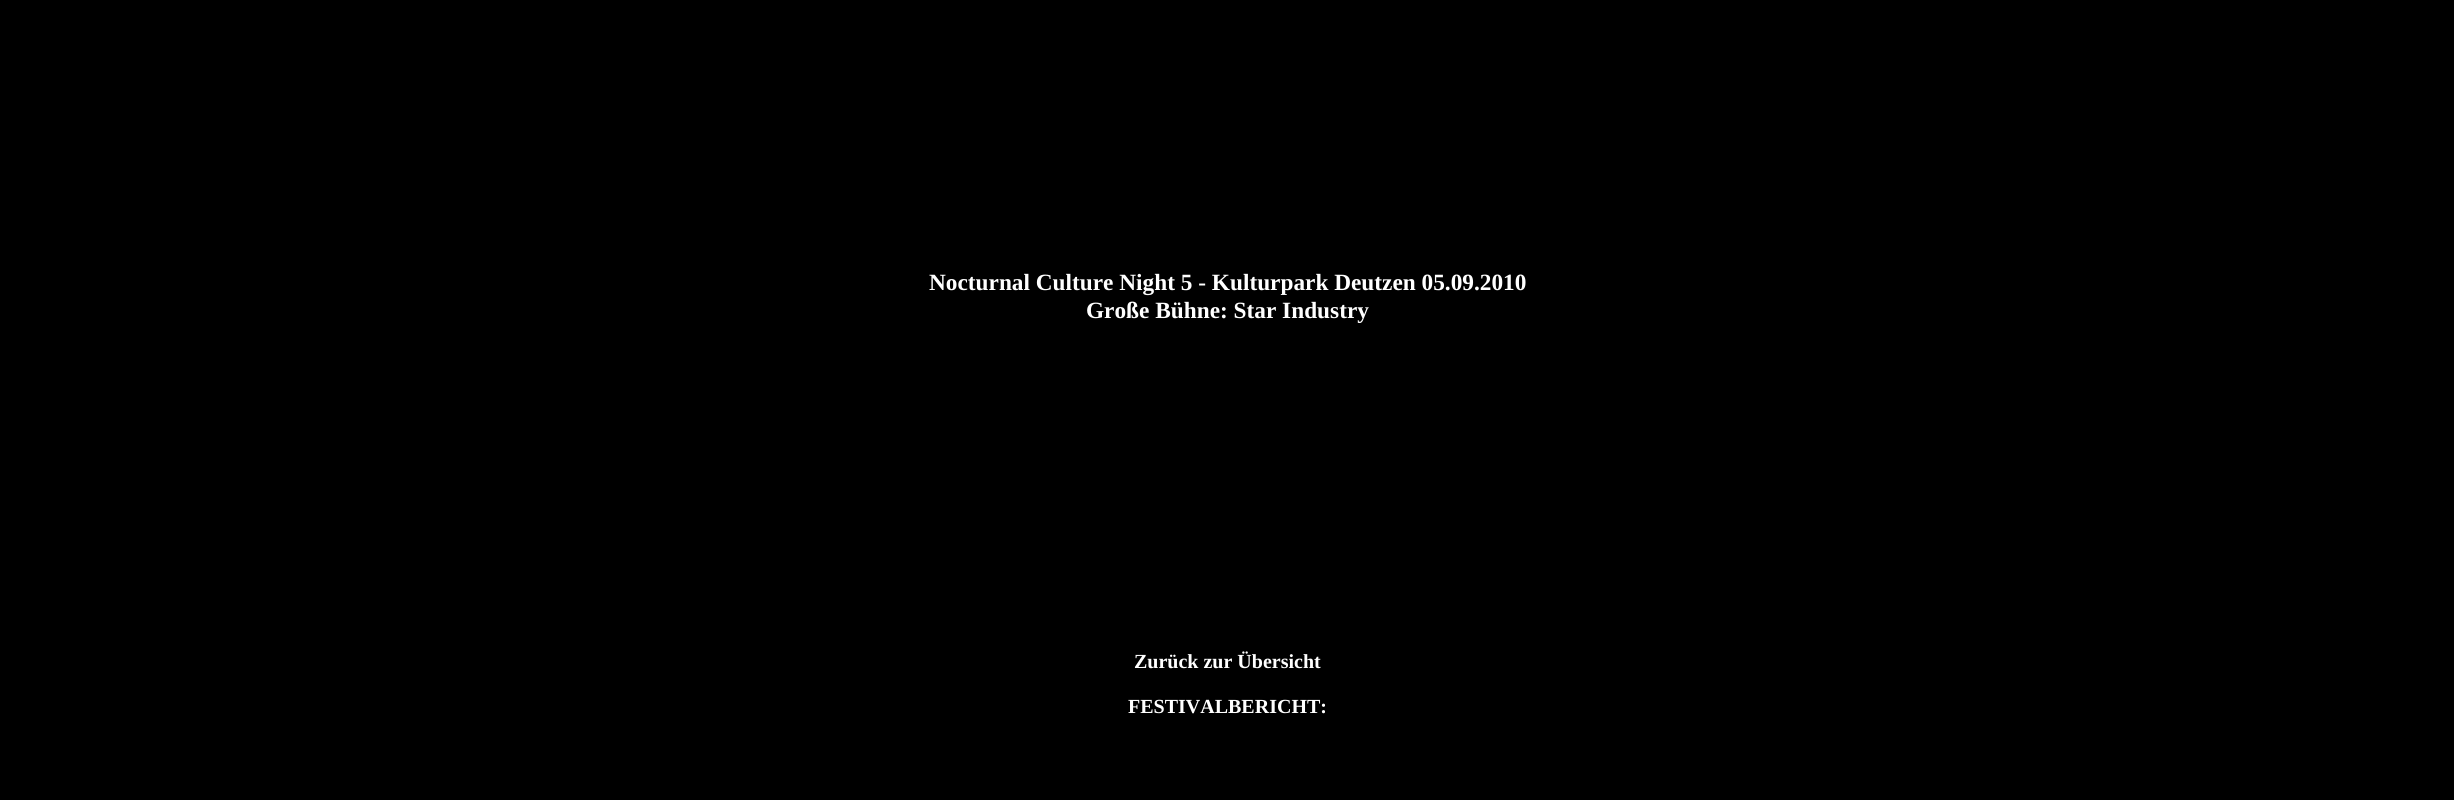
import math
import cairo

surface = cairo.ImageSurface(cairo.FORMAT_RGB24, 2454, 800)
cr = cairo.Context(surface)
options = cairo.FontOptions()
options.set_hint_metrics(cairo.HINT_METRICS_OFF)
options.set_hint_style(cairo.HINT_STYLE_NONE)
cr.set_font_options(options)
cr.set_miter_limit(4)


def rgb(code):
    cr.set_source_rgb(*(v / 255 for v in bytes.fromhex(code[-6:])))


rgb("#000000")
cr.paint()
cr.select_font_face("Liberation Serif", cairo.FONT_SLANT_NORMAL, cairo.FONT_WEIGHT_BOLD)
cr.set_font_size(23.3)
rgb("#ffffff")
cr.move_to(929, 290)
cr.show_text("Nocturnal Culture Night 5 - Kulturpark Deutzen 05.09.2010")
cr.move_to(1086, 318)
cr.show_text("Große Bühne: Star Industry")
cr.set_font_size(20)
cr.move_to(1134, 668)
cr.show_text("Zurück zur Übersicht")
cr.move_to(1128, 713)
cr.show_text("FESTIVALBERICHT:")
surface.write_to_png("page.png")
